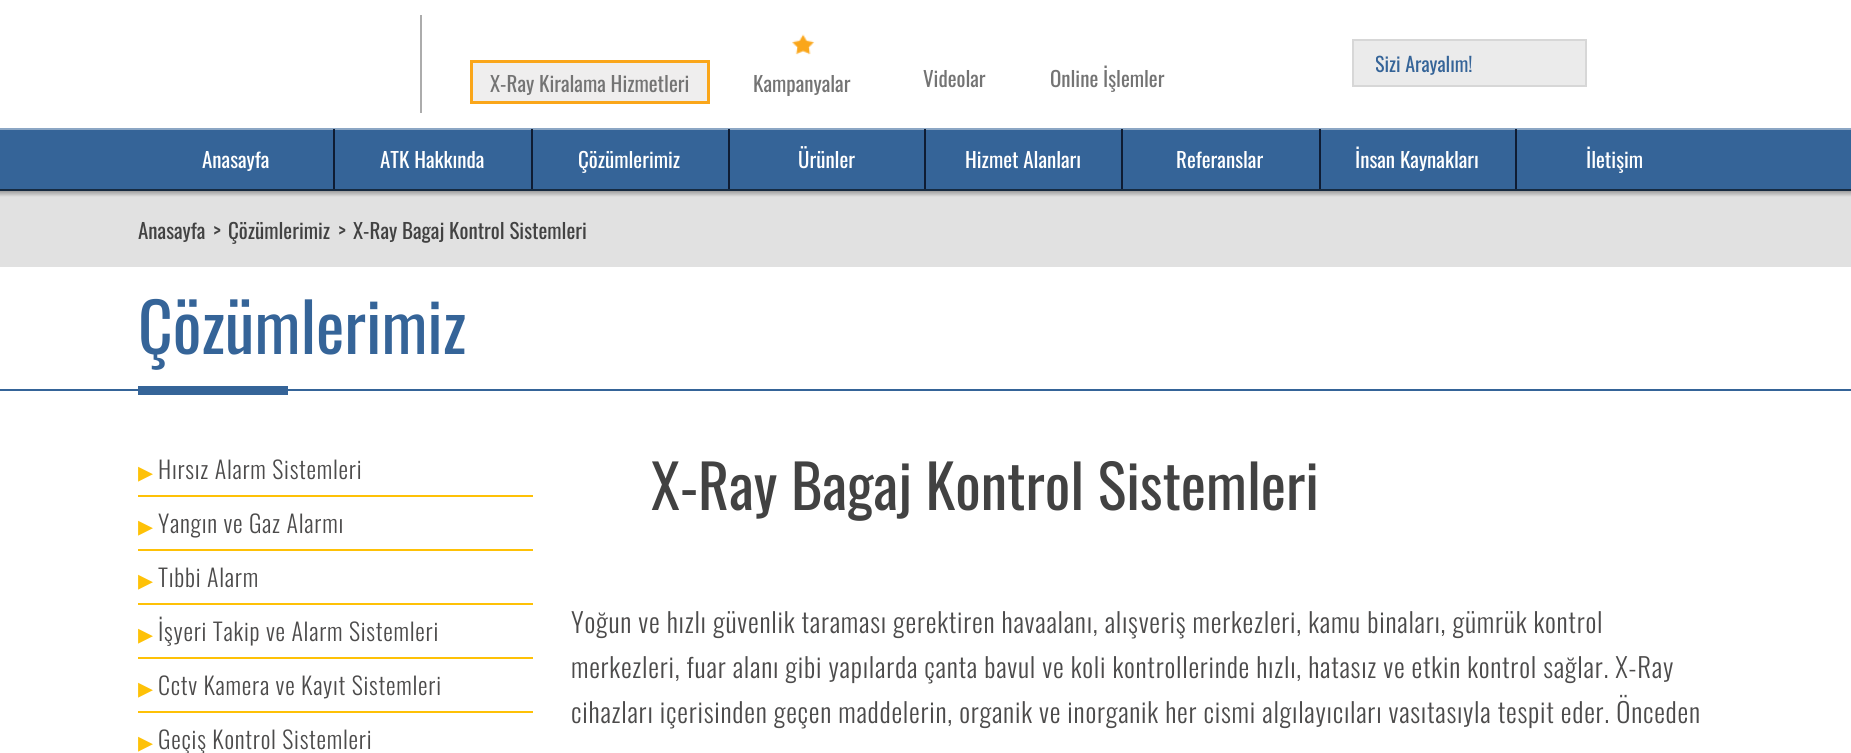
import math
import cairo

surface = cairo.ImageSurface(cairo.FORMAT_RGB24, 1851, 753)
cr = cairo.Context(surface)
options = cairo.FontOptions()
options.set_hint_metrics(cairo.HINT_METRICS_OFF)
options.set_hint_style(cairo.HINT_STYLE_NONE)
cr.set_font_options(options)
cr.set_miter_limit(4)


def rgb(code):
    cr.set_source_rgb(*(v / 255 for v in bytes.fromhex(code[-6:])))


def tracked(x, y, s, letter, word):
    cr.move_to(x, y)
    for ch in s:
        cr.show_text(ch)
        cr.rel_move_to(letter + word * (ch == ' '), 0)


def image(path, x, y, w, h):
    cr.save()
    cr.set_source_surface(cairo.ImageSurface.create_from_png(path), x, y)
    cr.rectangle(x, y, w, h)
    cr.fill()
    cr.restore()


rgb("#ffffff")
cr.paint()
rgb("#acacac")
cr.rectangle(420, 15, 2, 98)
cr.fill()
rgb("#efeeee")
cr.rectangle(471.5, 61.5, 237, 41)
cr.fill_preserve()
rgb("#faa61a")
cr.set_line_width(3)
cr.stroke()
image("img/1.png", 792, 34, 23, 21)
rgb("#ebebeb")
cr.rectangle(1353, 40, 233, 46)
cr.fill_preserve()
rgb("#d7d7d7")
cr.set_line_width(2)
cr.stroke()
for x, y, w, h, color in [
    (0, 130, 1851, 59, "#356498"),
    (0, 128, 1851, 2, "#8ba6c4"),
    (0, 189, 1851, 2, "#162a40"),
    (333, 129, 2, 60, "#0f1c33"),
    (531, 129, 2, 60, "#0f1c33"),
    (728, 129, 2, 60, "#0f1c33"),
    (924, 129, 2, 60, "#0f1c33"),
    (1121, 129, 2, 60, "#0f1c33"),
    (1319, 129, 2, 60, "#0f1c33"),
    (1515, 129, 2, 60, "#0f1c33"),
]:
    rgb(color)
    cr.rectangle(x, y, w, h)
    cr.fill()
gradient = cairo.LinearGradient(926, 190, 926, 267)
gradient.add_color_stop_rgba(0, 0.573, 0.573, 0.573, 1)
gradient.add_color_stop_rgba(0.09, 0.882, 0.882, 0.882, 1)
gradient.add_color_stop_rgba(1, 0.882, 0.882, 0.882, 1)
cr.set_source(gradient)
cr.rectangle(0, 191, 1851, 76)
cr.fill()
for x, y, w, h, color in [
    (0, 389, 1851, 2, "#356498"),
    (138, 386, 150, 9, "#356498"),
    (138, 495, 395, 2, "#fec107"),
    (138, 549, 395, 2, "#fec107"),
    (138, 603, 395, 2, "#fec107"),
    (138, 657, 395, 2, "#fec107"),
    (138, 711, 395, 2, "#fec107"),
]:
    rgb(color)
    cr.rectangle(x, y, w, h)
    cr.fill()
cr.select_font_face("Oswald")
cr.set_font_size(21)
rgb("#747474")
for x, y, s in [
    (490, 92, "X-Ray Kiralama Hizmetleri"),
    (753, 92, "Kampanyalar"),
    (923, 87, "Videolar"),
    (1050, 87, "Online İşlemler"),
]:
    cr.move_to(x, y)
    cr.show_text(s)
cr.save()
cr.rectangle(1376, 48, 157, 30)
cr.clip()
cr.set_font_size(20)
rgb("#356498")
cr.move_to(1375, 72)
cr.show_text("Sizi Arayalım!")
cr.restore()
rgb("#ffffff")
for x, y, s in [
    (202, 168, "Anasayfa"),
    (380, 168, "ATK Hakkında"),
    (578, 168, "Çözümlerimiz"),
    (798, 168, "Ürünler"),
    (965, 168, "Hizmet Alanları"),
    (1176, 168, "Referanslar"),
    (1355, 168, "İnsan Kaynakları"),
    (1586, 168, "İletişim"),
]:
    cr.move_to(x, y)
    cr.show_text(s)
rgb("#424242")
for x, y, s in [
    (138, 239, "Anasayfa"),
    (213, 239, ">"),
    (228, 239, "Çözümlerimiz"),
    (338, 239, ">"),
    (353, 239, "X-Ray Bagaj Kontrol Sistemleri"),
]:
    cr.move_to(x, y)
    cr.show_text(s)
cr.set_font_size(67.5)
rgb("#356498")
cr.move_to(138, 354)
cr.show_text("Çözümlerimiz")
cr.select_font_face("DejaVu Sans")
cr.set_font_size(30)
rgb("#fec107")
tracked(138, 482, "▸", 0.75, 0)
cr.select_font_face("Oswald Light")
cr.set_font_size(24)
rgb("#4c4b4b")
tracked(158, 479, "Hırsız Alarm Sistemleri", 0.75, 0)
cr.select_font_face("DejaVu Sans")
cr.set_font_size(30)
rgb("#fec107")
tracked(138, 536, "▸", 0.75, 0)
cr.select_font_face("Oswald Light")
cr.set_font_size(24)
rgb("#4c4b4b")
tracked(158, 533, "Yangın ve Gaz Alarmı", 0.75, 0)
cr.select_font_face("DejaVu Sans")
cr.set_font_size(30)
rgb("#fec107")
tracked(138, 590, "▸", 0.75, 0)
cr.select_font_face("Oswald Light")
cr.set_font_size(24)
rgb("#4c4b4b")
tracked(158, 587, "Tıbbi Alarm", 0.75, 0)
cr.select_font_face("DejaVu Sans")
cr.set_font_size(30)
rgb("#fec107")
tracked(138, 644, "▸", 0.75, 0)
cr.select_font_face("Oswald Light")
cr.set_font_size(24)
rgb("#4c4b4b")
tracked(158, 641, "İşyeri Takip ve Alarm Sistemleri", 0.75, 0)
cr.select_font_face("DejaVu Sans")
cr.set_font_size(30)
rgb("#fec107")
tracked(138, 698, "▸", 0.75, 0)
cr.select_font_face("Oswald Light")
cr.set_font_size(24)
rgb("#4c4b4b")
tracked(158, 695, "Cctv Kamera ve Kayıt Sistemleri", 0.75, 0)
cr.select_font_face("DejaVu Sans")
cr.set_font_size(30)
rgb("#fec107")
tracked(138, 752, "▸", 0.75, 0)
cr.select_font_face("Oswald Light")
cr.set_font_size(24)
rgb("#4c4b4b")
tracked(158, 749, "Geçiş Kontrol Sistemleri", 0.75, 0)
cr.select_font_face("Oswald")
cr.set_font_size(60)
rgb("#424242")
cr.move_to(651, 510)
cr.show_text("X-Ray Bagaj Kontrol Sistemleri")
cr.select_font_face("Oswald Light")
cr.set_font_size(27)
rgb("#4c4b4b")
for x, y, s in [
    (571, 633, "Yoğun ve hızlı güvenlik taraması gerektiren havaalanı, alışveriş merkezleri, kamu binaları, gümrük kontrol"),
    (571, 678, "merkezleri, fuar alanı gibi yapılarda çanta bavul ve koli kontrollerinde hızlı, hatasız ve etkin kontrol sağlar. X-Ray"),
    (571, 723, "cihazları içerisinden geçen maddelerin, organik ve inorganik her cismi algılayıcıları vasıtasıyla tespit eder. Önceden"),
]:
    tracked(x, y, s, 0.75, 0)
surface.write_to_png("page.png")
